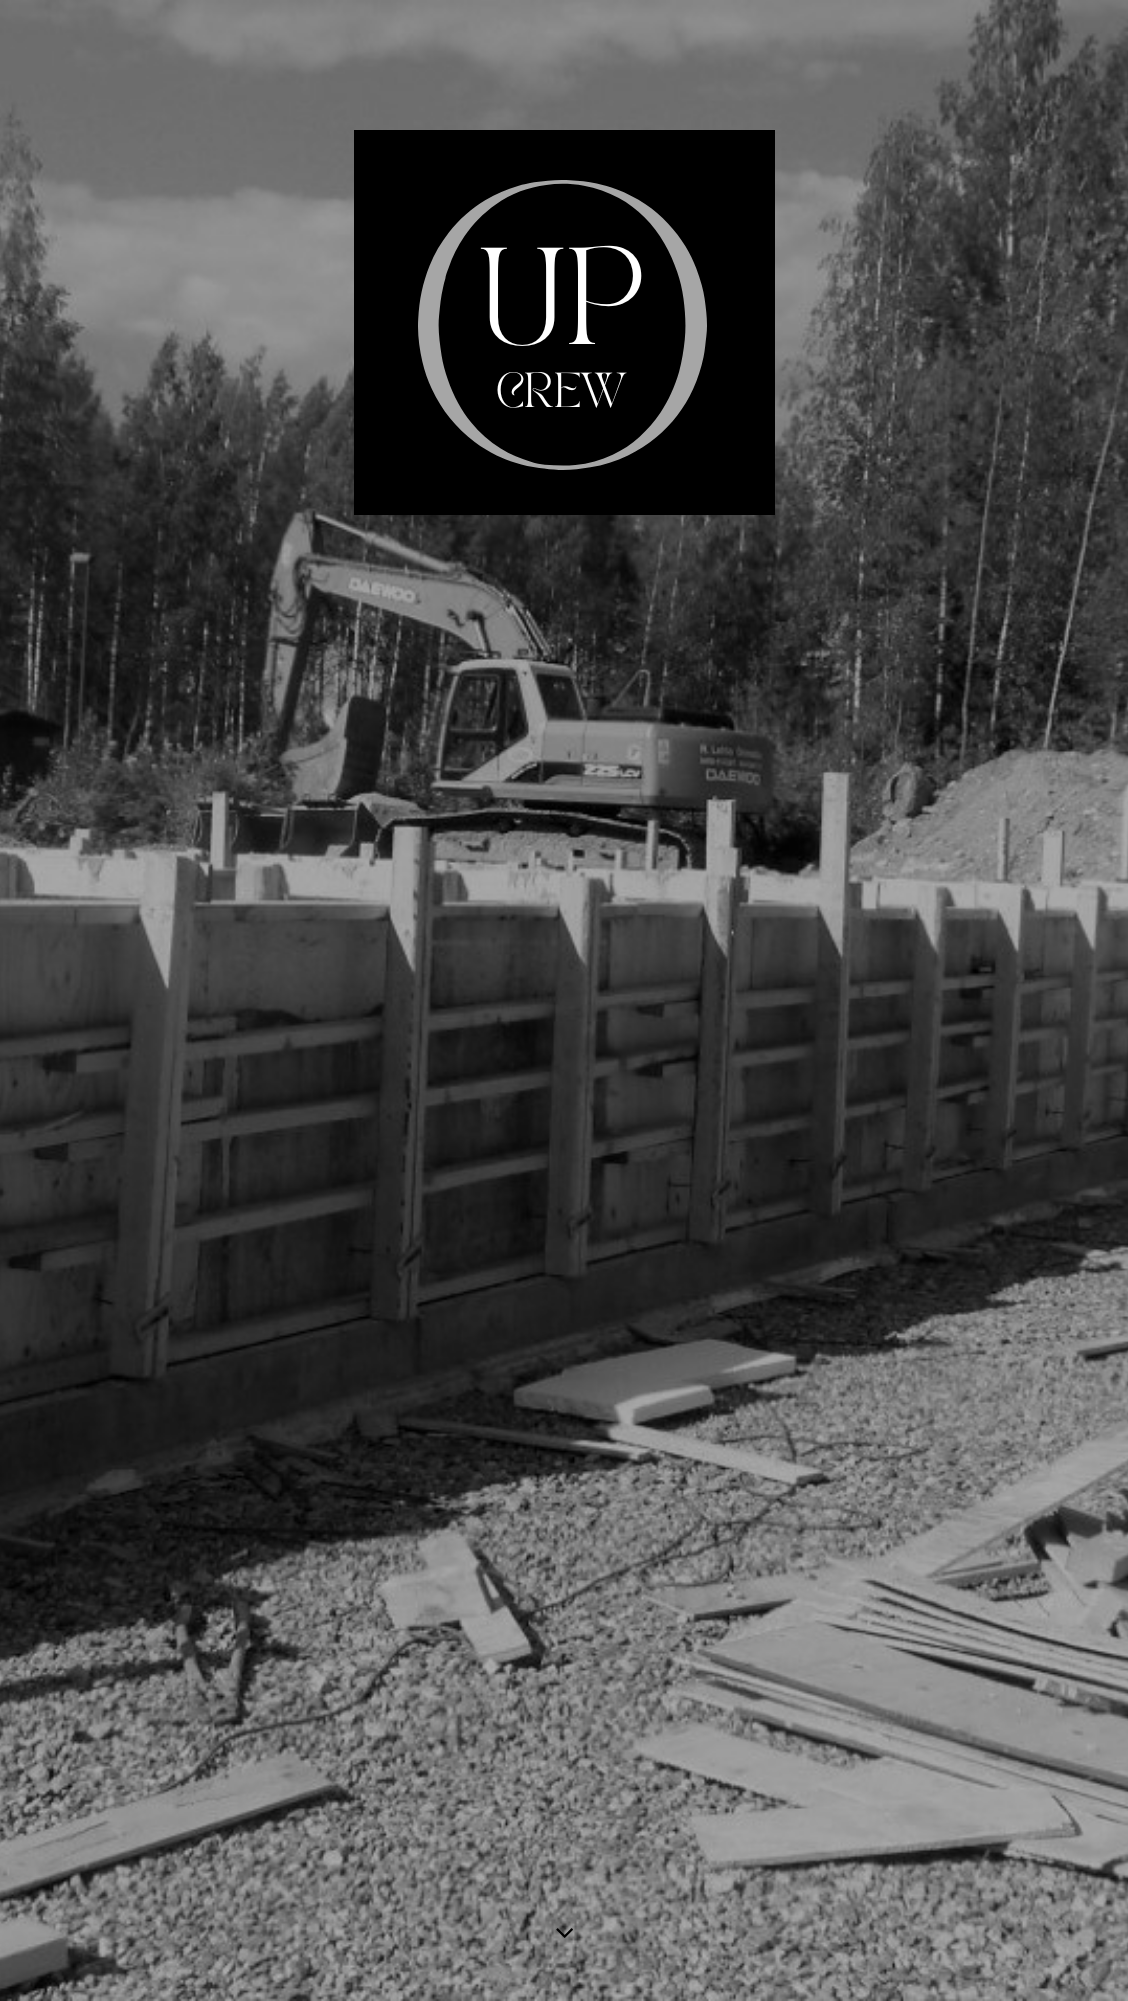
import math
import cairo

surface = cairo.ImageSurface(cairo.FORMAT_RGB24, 1128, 2001)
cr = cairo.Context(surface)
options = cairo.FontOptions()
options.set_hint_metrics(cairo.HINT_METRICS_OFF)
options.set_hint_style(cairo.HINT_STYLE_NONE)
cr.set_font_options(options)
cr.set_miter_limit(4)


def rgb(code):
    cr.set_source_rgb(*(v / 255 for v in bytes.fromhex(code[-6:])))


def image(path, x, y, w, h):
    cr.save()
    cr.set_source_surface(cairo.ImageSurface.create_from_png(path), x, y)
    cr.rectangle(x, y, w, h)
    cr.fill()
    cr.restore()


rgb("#ffffff")
cr.paint()
image("img/1.png", 0, 0, 1128, 2001)
image("img/2.png", 354, 130, 421, 385)
image("img/3.png", 556, 1928, 17, 10)
surface.write_to_png("page.png")
